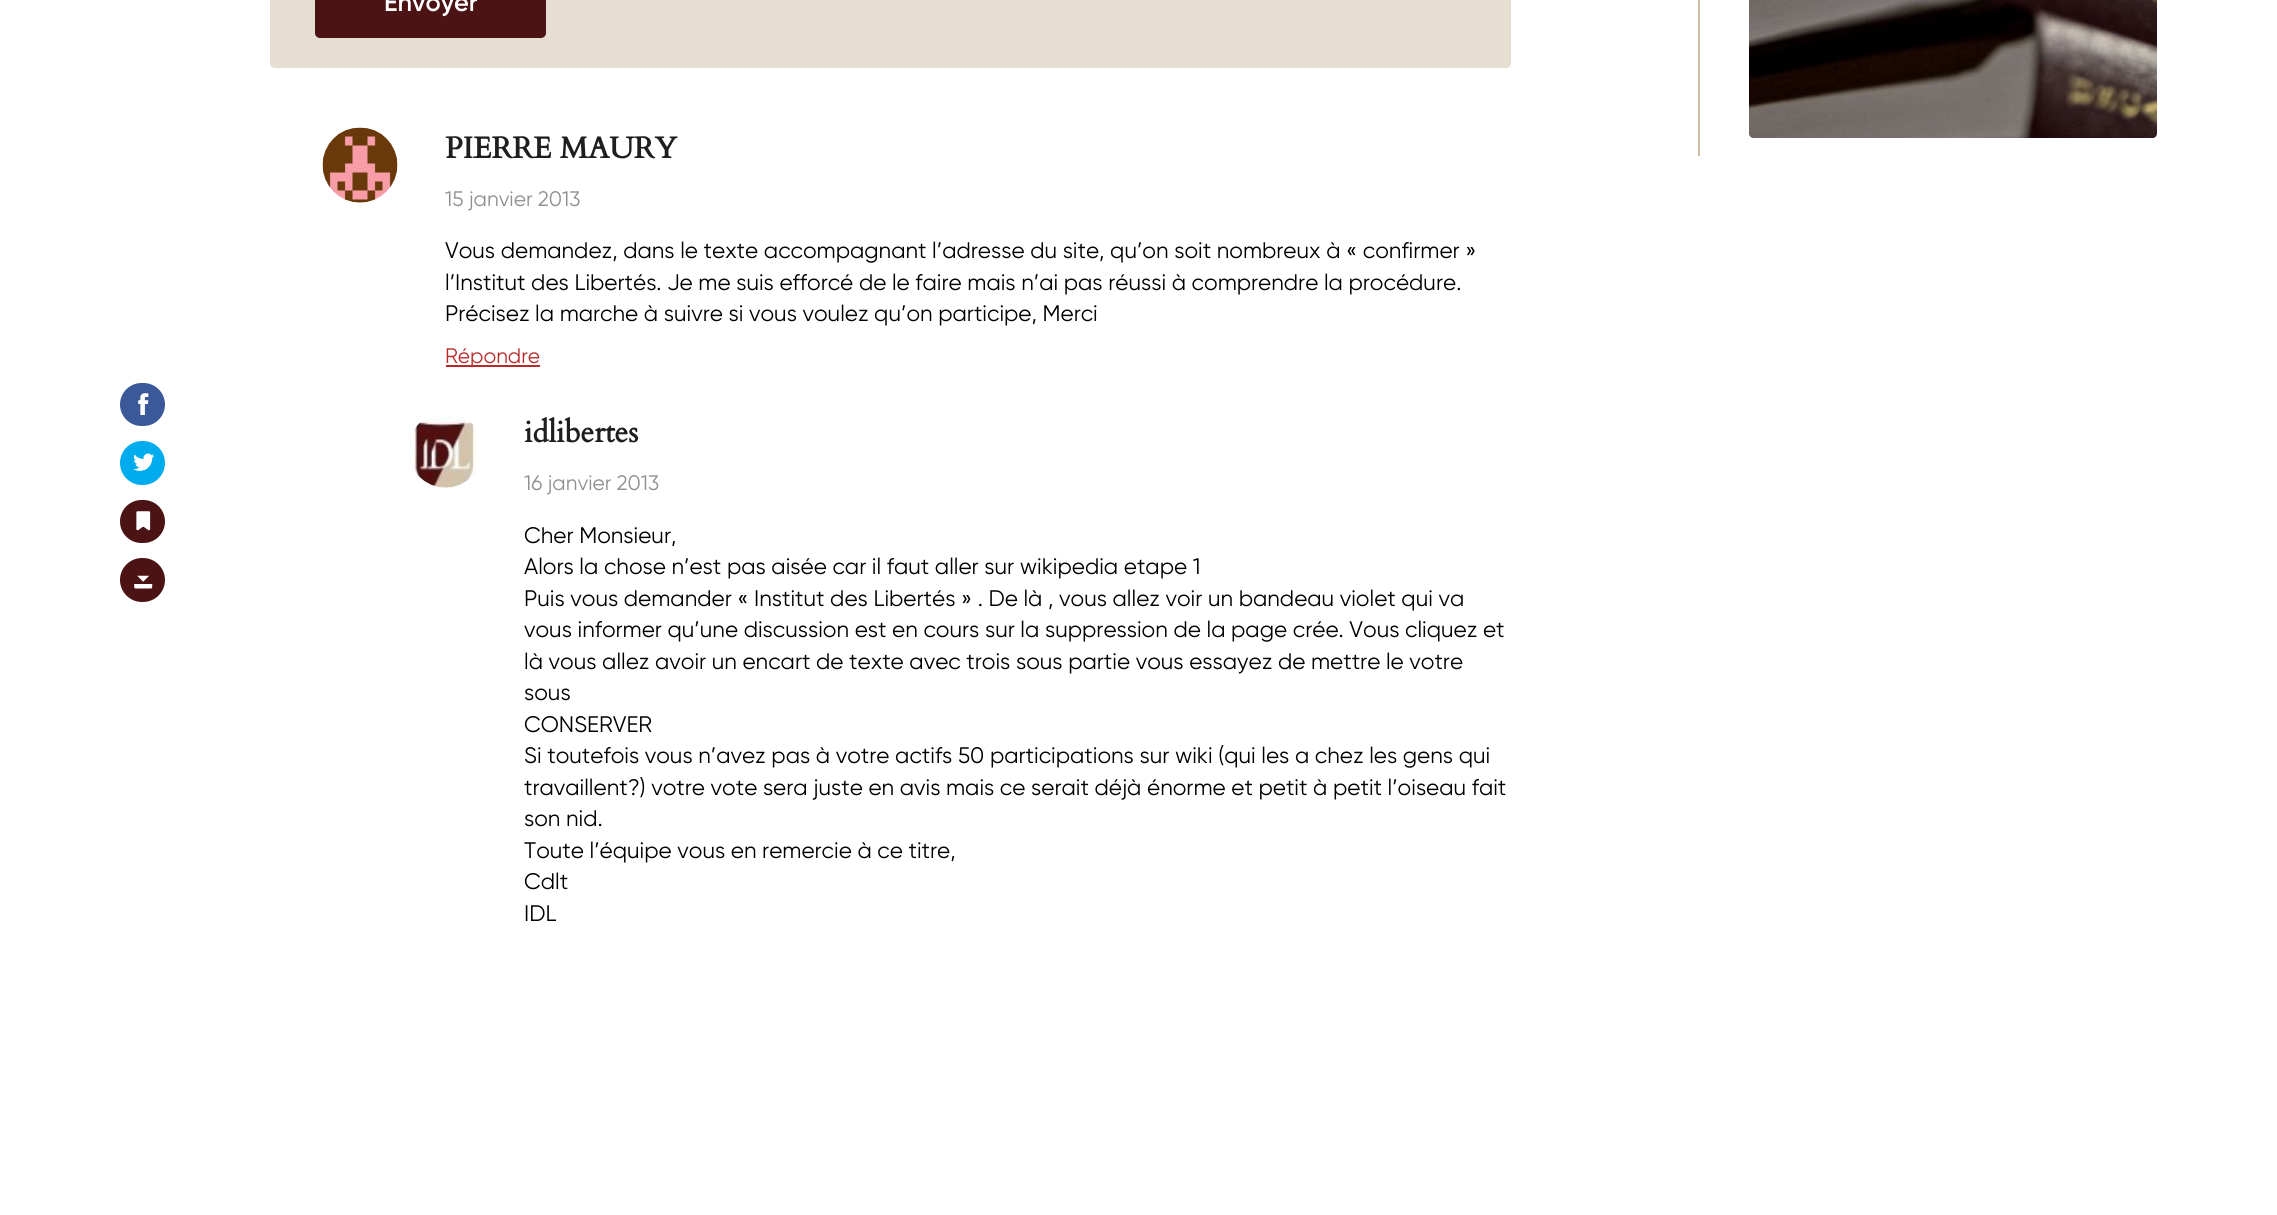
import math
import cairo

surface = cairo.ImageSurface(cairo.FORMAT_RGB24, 2277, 1215)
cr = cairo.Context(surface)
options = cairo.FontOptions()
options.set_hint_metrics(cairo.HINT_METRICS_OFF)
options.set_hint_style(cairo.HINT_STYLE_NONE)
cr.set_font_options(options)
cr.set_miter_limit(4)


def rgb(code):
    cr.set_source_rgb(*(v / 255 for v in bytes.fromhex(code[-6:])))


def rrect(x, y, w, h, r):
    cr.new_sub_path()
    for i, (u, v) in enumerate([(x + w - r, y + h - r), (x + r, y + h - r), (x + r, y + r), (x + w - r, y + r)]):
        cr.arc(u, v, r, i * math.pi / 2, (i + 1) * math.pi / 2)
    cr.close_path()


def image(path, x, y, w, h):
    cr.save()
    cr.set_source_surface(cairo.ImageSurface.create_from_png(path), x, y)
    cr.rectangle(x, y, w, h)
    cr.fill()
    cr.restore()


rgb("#ffffff")
cr.paint()
rgb("#e6ded1")
rrect(270, -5, 1241, 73, 5)
cr.fill()
rgb("#4b1313")
rrect(315, -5, 231, 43, 5)
cr.fill()
image("img/1.png", 322, 127, 76, 76)
rgb("#b72a2a")
cr.rectangle(446, 365, 94, 2)
cr.fill()
image("img/2.png", 409, 416, 68, 72)
rgb("#cdbda2")
cr.rectangle(1698, 0, 2, 156)
cr.fill()
image("img/3.png", 1749, 0, 408, 138)
rgb("#3b5998")
rrect(120, 383, 45, 43, 21.5)
cr.fill()
image("img/4.png", 138, 393, 11, 22)
rgb("#00acee")
rrect(120, 441, 45, 44, 22)
cr.fill()
image("img/5.png", 133, 453, 21, 18)
rgb("#4b1313")
rrect(120, 500, 45, 43, 21.5)
cr.fill()
image("img/6.png", 136, 511, 15, 20)
rrect(120, 558, 45, 44, 22)
cr.fill()
image("img/7.png", 134, 575, 19, 14)
cr.select_font_face("Gilroy SemiBold")
cr.set_font_size(25.5)
rgb("#ffffff")
cr.move_to(384, 11)
cr.show_text("Envoyer")
cr.select_font_face("Cardo", cairo.FONT_SLANT_NORMAL, cairo.FONT_WEIGHT_BOLD)
cr.set_font_size(30)
rgb("#1f1f1f")
cr.move_to(445, 158)
cr.show_text("PIERRE MAURY")
cr.select_font_face("Gilroy")
cr.set_font_size(21)
rgb("#8f8f8f")
cr.move_to(445, 206)
cr.show_text("15 janvier 2013")
cr.set_font_size(22.5)
rgb("#000000")
for x, y, s in [
    (445, 258, "Vous demandez, dans le texte accompagnant l’adresse du site, qu’on soit nombreux à « confirmer »"),
    (445, 290, "l’Institut des Libertés. Je me suis efforcé de le faire mais n’ai pas réussi à comprendre la procédure."),
    (445, 321, "Précisez la marche à suivre si vous voulez qu’on participe, Merci"),
]:
    cr.move_to(x, y)
    cr.show_text(s)
cr.set_font_size(21)
rgb("#b72a2a")
cr.move_to(445, 363)
cr.show_text("Répondre")
cr.select_font_face("Cardo", cairo.FONT_SLANT_NORMAL, cairo.FONT_WEIGHT_BOLD)
cr.set_font_size(30)
rgb("#1f1f1f")
cr.move_to(524, 442)
cr.show_text("idlibertes")
cr.select_font_face("Gilroy")
cr.set_font_size(21)
rgb("#8f8f8f")
cr.move_to(524, 490)
cr.show_text("16 janvier 2013")
cr.set_font_size(22.5)
rgb("#000000")
for x, y, s in [
    (524, 543, "Cher Monsieur,"),
    (524, 574, "Alors la chose n’est pas aisée car il faut aller sur wikipedia etape 1"),
    (524, 606, "Puis vous demander « Institut des Libertés » . De là , vous allez voir un bandeau violet qui va"),
    (524, 637, "vous informer qu’une discussion est en cours sur la suppression de la page crée. Vous cliquez et"),
    (524, 669, "là vous allez avoir un encart de texte avec trois sous partie vous essayez de mettre le votre"),
    (524, 700, "sous"),
    (524, 732, "CONSERVER"),
    (524, 763, "Si toutefois vous n’avez pas à votre actifs 50 participations sur wiki (qui les a chez les gens qui"),
    (524, 795, "travaillent?) votre vote sera juste en avis mais ce serait déjà énorme et petit à petit l’oiseau fait"),
    (524, 826, "son nid."),
    (524, 858, "Toute l’équipe vous en remercie à ce titre,"),
    (524, 889, "Cdlt"),
    (524, 921, "IDL"),
]:
    cr.move_to(x, y)
    cr.show_text(s)
surface.write_to_png("page.png")
